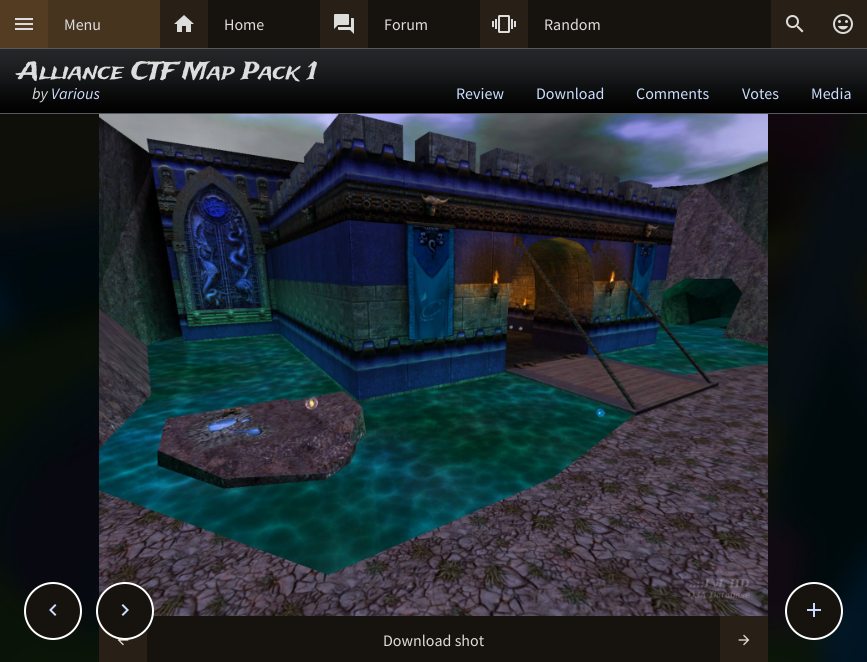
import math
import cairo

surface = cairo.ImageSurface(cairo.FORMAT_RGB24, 867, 662)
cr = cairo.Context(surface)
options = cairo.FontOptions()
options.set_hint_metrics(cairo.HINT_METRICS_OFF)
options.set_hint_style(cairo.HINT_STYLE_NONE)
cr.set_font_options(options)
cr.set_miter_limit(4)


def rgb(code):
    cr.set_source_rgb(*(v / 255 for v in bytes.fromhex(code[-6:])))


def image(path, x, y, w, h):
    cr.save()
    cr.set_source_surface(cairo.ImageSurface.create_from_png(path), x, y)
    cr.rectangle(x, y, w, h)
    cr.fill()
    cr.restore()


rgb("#ffffff")
cr.paint()
rgb("#16130f")
cr.rectangle(208, 0, 563, 48)
cr.fill()
rgb("#543c22")
cr.rectangle(0, 0, 48, 48)
cr.fill()
image("img/1.png", 15, 18, 18, 12)
rgb("#47341f")
cr.rectangle(48, 0, 112, 48)
cr.fill()
rgb("#282016")
cr.rectangle(160, 0, 48, 48)
cr.fill()
image("img/2.png", 174, 15, 20, 17)
cr.rectangle(320, 0, 48, 48)
cr.fill()
image("img/3.png", 334, 14, 20, 20)
cr.rectangle(480, 0, 48, 48)
cr.fill()
image("img/4.png", 492, 15, 24, 18)
cr.rectangle(771, 0, 96, 48)
cr.fill()
image("img/5.png", 786, 15, 18, 18)
image("img/6.png", 833, 14, 20, 20)
image("img/7.png", 0, 49, 867, 64)
rgb("#56585d")
cr.rectangle(0, 48, 867, 1)
cr.fill()
cr.rectangle(0, 113, 867, 1)
cr.fill()
image("img/8.png", 0, 114, 867, 548)
rgb("#16130f")
cr.arc(53, 611, 28, 0, 2 * math.pi)
cr.fill_preserve()
rgb("#ffffff")
cr.stroke()
image("img/9.png", 49, 604, 8, 12)
image("img/12.png", 99, 114, 669, 502)
rgb("#16130f")
cr.rectangle(147, 616, 573, 46)
cr.fill()
rgb("#282016")
cr.rectangle(99, 623, 48, 39)
cr.fill()
image("img/13.png", 117, 639, 12, 7)
rgb("#16130f")
cr.arc(125, 611, 28, 0, 2 * math.pi)
cr.fill_preserve()
rgb("#ffffff")
cr.stroke()
image("img/10.png", 121, 604, 8, 12)
rgb("#16130f")
cr.arc(814, 611, 28, 0, 2 * math.pi)
cr.fill_preserve()
rgb("#ffffff")
cr.stroke()
image("img/11.png", 807, 603, 14, 14)
rgb("#282016")
cr.rectangle(720, 616, 48, 46)
cr.fill()
image("img/14.png", 738, 634, 12, 12)
cr.select_font_face("Source Sans Pro")
cr.set_font_size(16)
rgb("#dddddd")
for x, y, s in [
    (64, 30, "Menu"),
    (224, 30, "Home"),
    (384, 30, "Forum"),
    (544, 30, "Random"),
]:
    cr.move_to(x, y)
    cr.show_text(s)
cr.select_font_face("Trade Winds")
cr.set_font_size(24)
cr.move_to(18, 79)
cr.show_text("Alliance CTF Map Pack 1")
cr.select_font_face("Source Sans Pro", cairo.FONT_SLANT_ITALIC)
cr.set_font_size(16)
cr.move_to(32, 99)
cr.show_text("by")
rgb("#ccddff")
cr.move_to(51, 99)
cr.show_text("Various")
cr.select_font_face("Source Sans Pro")
for x, y, s in [
    (456, 99, "Review"),
    (536, 99, "Download"),
    (636, 99, "Comments"),
    (742, 99, "Votes"),
    (811, 99, "Media"),
]:
    cr.move_to(x, y)
    cr.show_text(s)
rgb("#e2dbd3")
cr.move_to(383, 646)
cr.show_text("Download shot")
surface.write_to_png("page.png")
